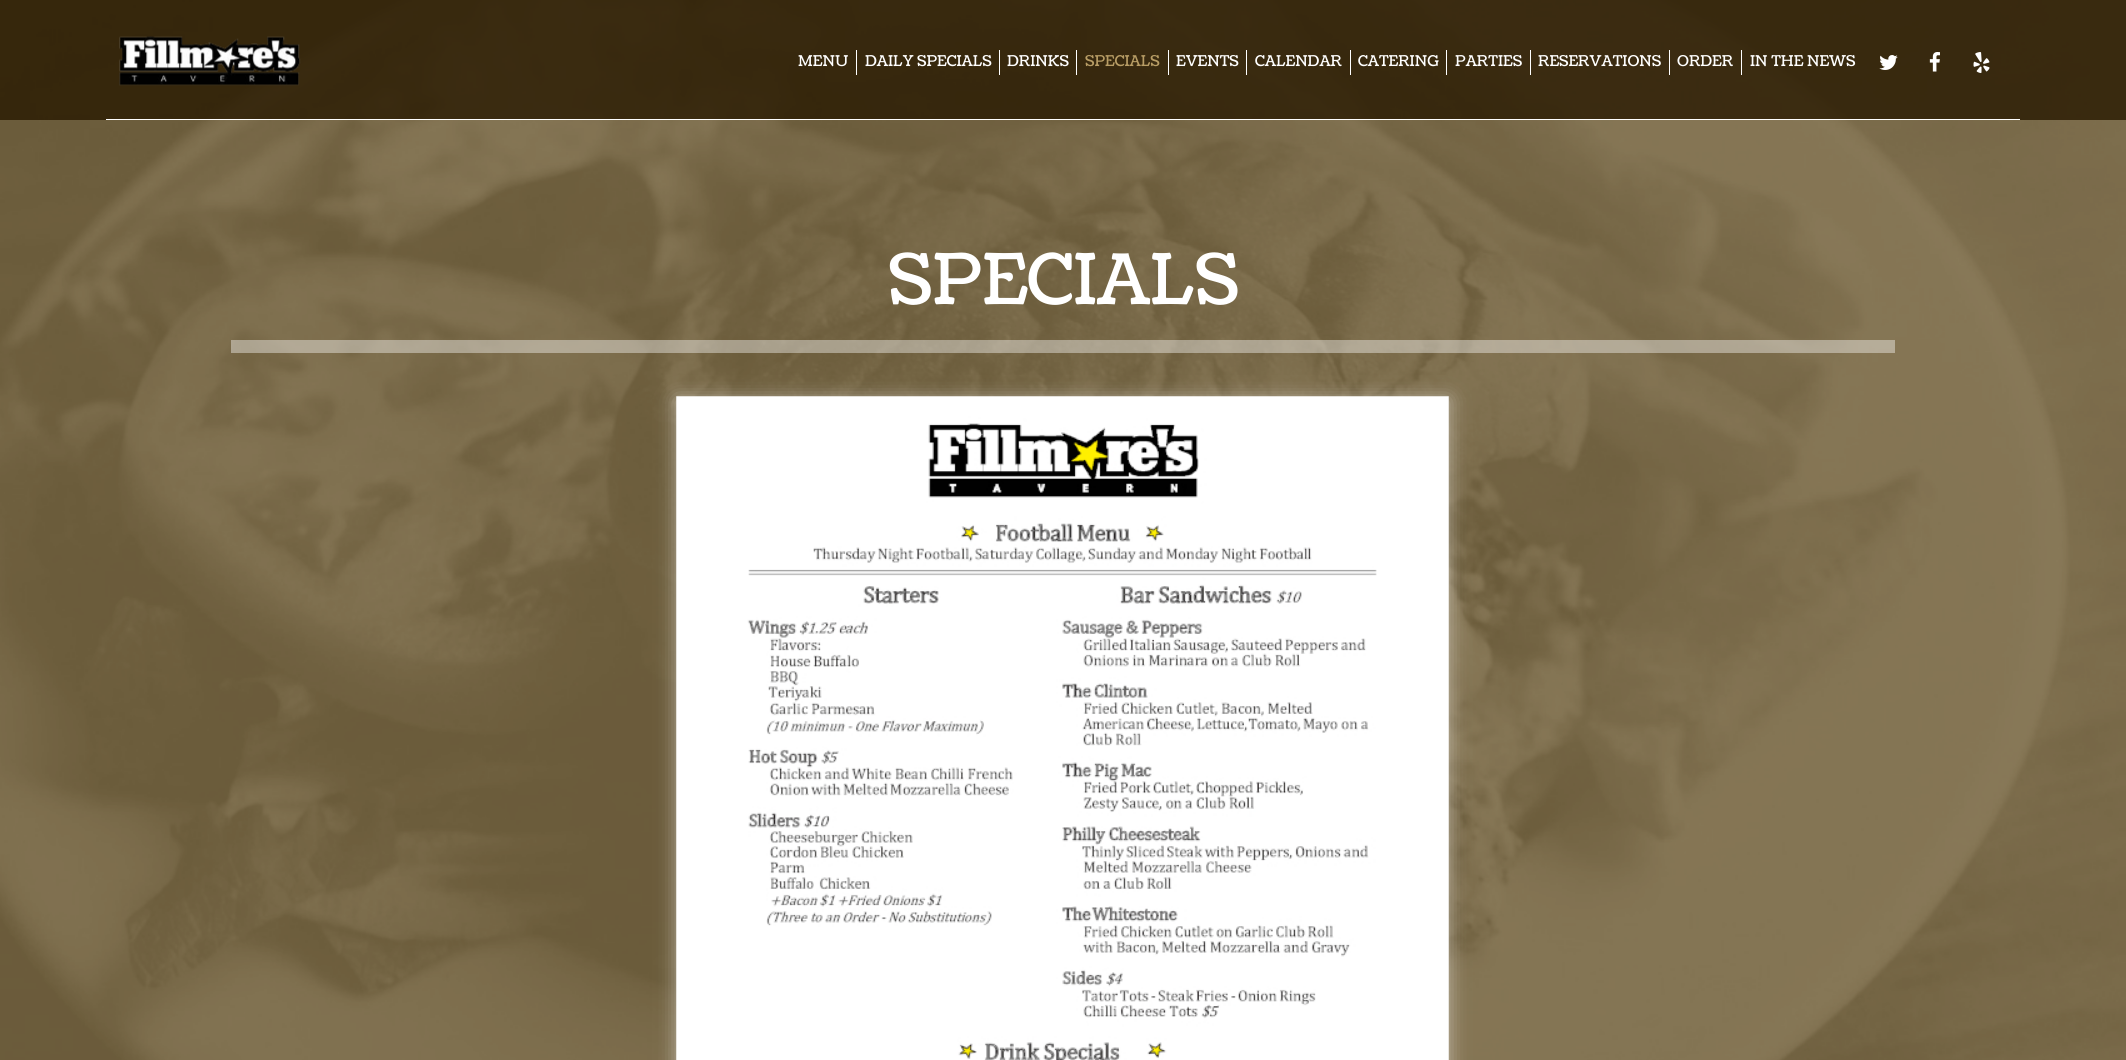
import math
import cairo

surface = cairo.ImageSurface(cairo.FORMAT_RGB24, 2126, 1060)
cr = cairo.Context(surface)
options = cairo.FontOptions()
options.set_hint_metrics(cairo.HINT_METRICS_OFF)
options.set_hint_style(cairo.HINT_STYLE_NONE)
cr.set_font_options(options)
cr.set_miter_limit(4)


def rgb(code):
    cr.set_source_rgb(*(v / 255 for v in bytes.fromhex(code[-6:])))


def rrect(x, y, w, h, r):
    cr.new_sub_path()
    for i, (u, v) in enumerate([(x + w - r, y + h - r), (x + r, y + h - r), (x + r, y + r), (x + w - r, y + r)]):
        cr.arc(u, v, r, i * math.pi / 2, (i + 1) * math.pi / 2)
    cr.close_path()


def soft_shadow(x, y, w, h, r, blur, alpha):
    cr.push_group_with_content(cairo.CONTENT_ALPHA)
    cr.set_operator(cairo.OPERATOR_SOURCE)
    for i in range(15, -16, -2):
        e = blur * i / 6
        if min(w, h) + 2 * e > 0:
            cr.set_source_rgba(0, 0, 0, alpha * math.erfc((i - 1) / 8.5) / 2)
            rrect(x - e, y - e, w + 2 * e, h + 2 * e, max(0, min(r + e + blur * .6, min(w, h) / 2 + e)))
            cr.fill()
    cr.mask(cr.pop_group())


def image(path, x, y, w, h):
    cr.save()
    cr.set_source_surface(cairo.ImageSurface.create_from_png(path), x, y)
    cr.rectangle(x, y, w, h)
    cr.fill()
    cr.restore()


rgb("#ffffff")
cr.paint()
image("img/1.png", 0, 0, 2126, 1060)
cr.set_source_rgba(0.161, 0.098, 0, 0.8)
cr.rectangle(0, 0, 2126, 120)
cr.fill()
rgb("#ffffff")
cr.rectangle(106, 119, 1914, 1)
cr.fill()
image("img/2.png", 119, 36, 182, 50)
for x, y, w, h, color in [
    (856, 50, 1, 25, "#ffffff"),
    (999, 50, 1, 25, "#ffffff"),
    (1076, 50, 1, 25, "#ffffff"),
    (1168, 50, 1, 25, "#ffffff"),
    (1246, 50, 1, 25, "#ffffff"),
    (1350, 50, 1, 25, "#ffffff"),
    (1446, 50, 1, 25, "#ffffff"),
    (1530, 50, 1, 25, "#ffffff"),
    (1669, 50, 1, 25, "#ffffff"),
    (1741, 50, 1, 25, "#ffffff"),
]:
    rgb(color)
    cr.rectangle(x, y, w, h)
    cr.fill()
image("img/3.png", 1879, 55, 19, 15)
image("img/4.png", 1929, 52, 11, 20)
image("img/5.png", 1973, 52, 17, 21)
cr.set_source_rgba(1, 1, 1, 0.4)
cr.rectangle(231, 340, 1664, 13)
cr.fill()
rgb("#ffffff")
soft_shadow(676, 399, 773, 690, 0, 9.5, 0.5)
image("img/6.png", 676, 396, 773, 664)
cr.select_font_face("Coustard")
cr.set_font_size(14.9)
rgb("#ffffff")
for x, y, s in [
    (798, 66, "MENU"),
    (865, 66, "DAILY SPECIALS"),
    (1007, 66, "DRINKS"),
]:
    cr.move_to(x, y)
    cr.show_text(s)
rgb("#b89d65")
cr.move_to(1085, 66)
cr.show_text("SPECIALS")
rgb("#ffffff")
for x, y, s in [
    (1176, 66, "EVENTS"),
    (1255, 66, "CALENDAR"),
    (1358, 66, "CATERING"),
    (1455, 66, "PARTIES"),
    (1538, 66, "RESERVATIONS"),
    (1677, 66, "ORDER"),
    (1750, 66, "IN THE NEWS"),
]:
    cr.move_to(x, y)
    cr.show_text(s)
cr.set_font_size(70)
cr.move_to(888, 304)
cr.show_text("SPECIALS")
surface.write_to_png("page.png")
